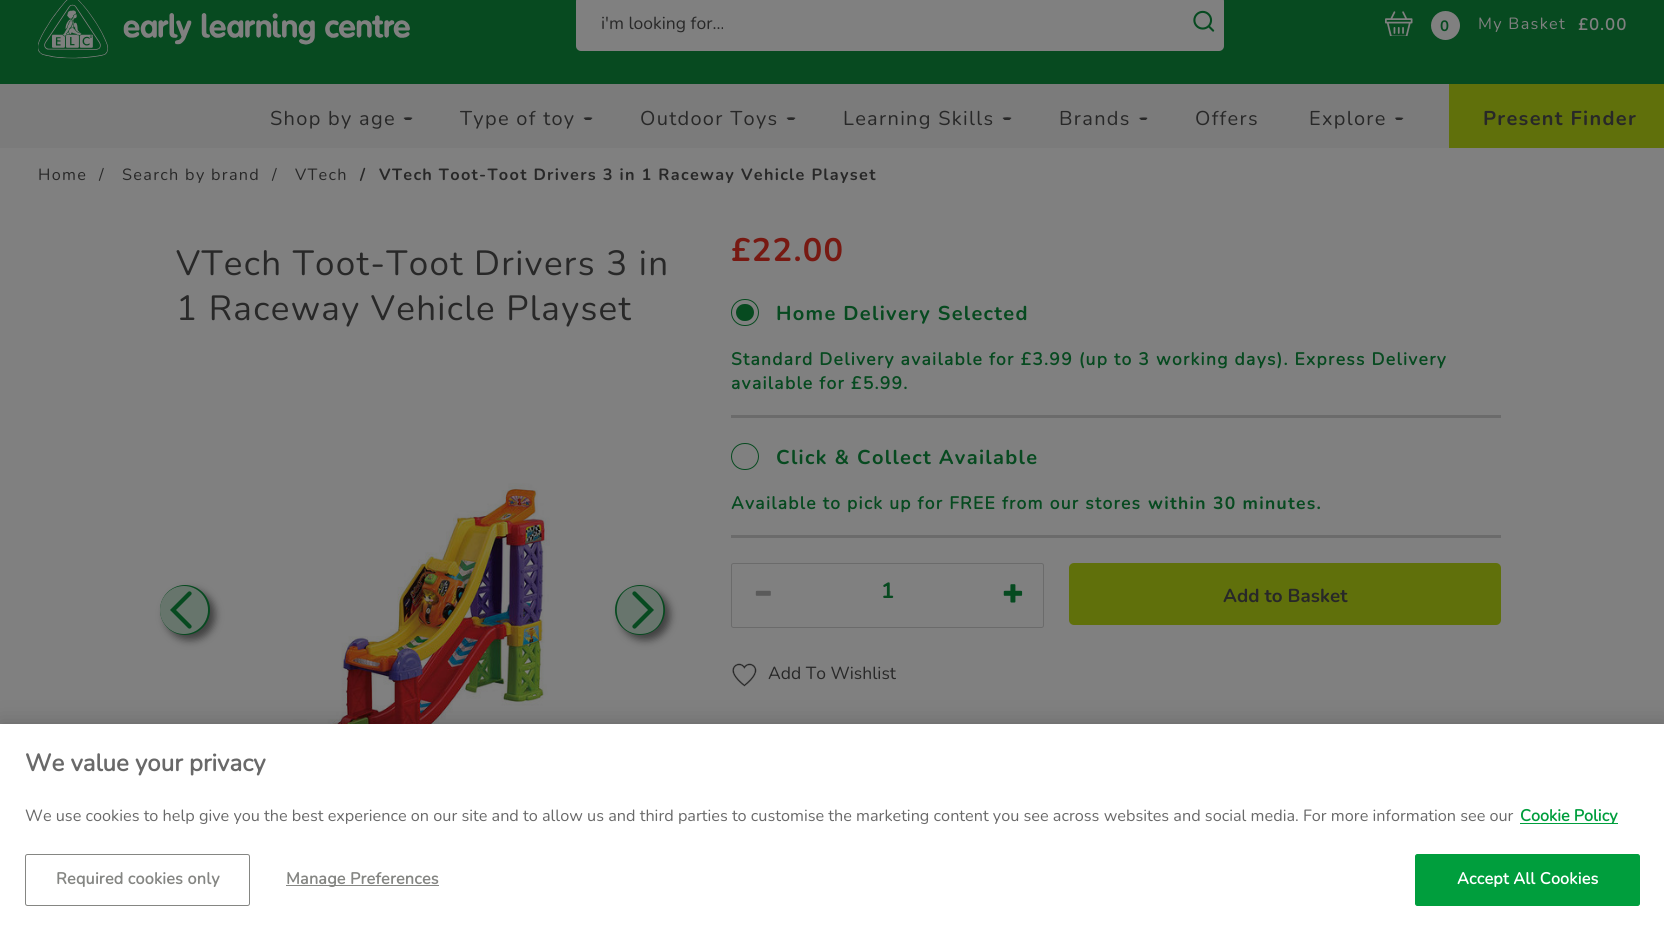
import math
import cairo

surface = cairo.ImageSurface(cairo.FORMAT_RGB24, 1664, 931)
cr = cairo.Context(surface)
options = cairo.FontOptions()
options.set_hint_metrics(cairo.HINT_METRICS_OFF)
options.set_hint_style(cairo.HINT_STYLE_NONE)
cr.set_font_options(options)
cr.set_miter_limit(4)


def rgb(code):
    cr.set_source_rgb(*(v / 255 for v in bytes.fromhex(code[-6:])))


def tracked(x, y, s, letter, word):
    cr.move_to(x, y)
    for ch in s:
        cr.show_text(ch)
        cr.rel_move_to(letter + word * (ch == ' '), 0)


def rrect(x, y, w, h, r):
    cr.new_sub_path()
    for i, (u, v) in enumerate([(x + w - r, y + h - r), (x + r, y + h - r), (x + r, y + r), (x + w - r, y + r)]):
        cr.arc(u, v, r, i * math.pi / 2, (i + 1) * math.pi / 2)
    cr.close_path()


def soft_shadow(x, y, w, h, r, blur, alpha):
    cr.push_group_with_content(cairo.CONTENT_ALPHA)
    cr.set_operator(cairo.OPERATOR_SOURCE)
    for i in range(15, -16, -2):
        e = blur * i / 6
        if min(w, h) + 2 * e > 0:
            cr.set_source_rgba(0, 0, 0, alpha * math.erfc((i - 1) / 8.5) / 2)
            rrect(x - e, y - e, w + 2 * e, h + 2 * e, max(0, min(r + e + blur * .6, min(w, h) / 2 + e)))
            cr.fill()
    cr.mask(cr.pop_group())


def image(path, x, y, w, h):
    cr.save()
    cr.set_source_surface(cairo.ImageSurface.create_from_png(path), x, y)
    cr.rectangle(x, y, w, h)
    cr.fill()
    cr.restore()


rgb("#808080")
cr.paint()
rgb("#074a20")
cr.rectangle(0, 0, 1664, 84)
cr.fill()
image("img/1.png", 38, 0, 372, 59)
rgb("#808080")
rrect(576, -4, 648, 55, 5)
cr.fill()
image("img/2.png", 1193, 10, 22, 22)
image("img/3.png", 1385, 11, 28, 25)
cr.arc(1445.5, 25.5, 14.5, 0, 2 * math.pi)
cr.fill()
rgb("#7b7b7b")
cr.rectangle(0, 84, 1449, 64)
cr.fill()
rgb("#282828")
cr.new_path()
cr.move_to(412.5, 118)
cr.line_to(410.5, 120)
cr.line_to(405.5, 120)
cr.line_to(403.5, 118)
cr.curve_to(405, 117, 411.5, 117, 412.5, 118)
cr.close_path()
cr.fill()
cr.new_path()
cr.move_to(592.5, 118)
cr.line_to(590.5, 120)
cr.line_to(585.5, 120)
cr.line_to(583.5, 118)
cr.curve_to(585, 117, 591.5, 117, 592.5, 118)
cr.close_path()
cr.fill()
cr.new_path()
cr.move_to(795.5, 118)
cr.line_to(793.5, 120)
cr.line_to(788.5, 120)
cr.line_to(786.5, 118)
cr.curve_to(788, 117, 794.5, 117, 795.5, 118)
cr.close_path()
cr.fill()
cr.new_path()
cr.move_to(1011.5, 118)
cr.line_to(1009.5, 120)
cr.line_to(1004.5, 120)
cr.line_to(1002.5, 118)
cr.curve_to(1004, 117, 1010.5, 117, 1011.5, 118)
cr.close_path()
cr.fill()
cr.new_path()
cr.move_to(1147.5, 118)
cr.line_to(1146, 120)
cr.line_to(1141, 120)
cr.line_to(1139, 118)
cr.curve_to(1140, 117.5, 1146.5, 117, 1147.5, 118)
cr.close_path()
cr.fill()
cr.new_path()
cr.move_to(1403.5, 118)
cr.line_to(1401.5, 120)
cr.line_to(1396.5, 120)
cr.line_to(1395, 118)
cr.curve_to(1396, 117, 1402.5, 117.5, 1403.5, 118)
cr.close_path()
cr.fill()
rgb("#60700b")
cr.rectangle(1449, 84, 215, 64)
cr.fill()
image("img/4.png", 265, 483, 285, 241)
rgb("#000000")
soft_shadow(165, 590, 50, 50, 25, 4, 0.5)
rgb("#074a20")
cr.arc(185, 610, 25, 0, 2 * math.pi)
cr.fill()
cr.set_source_rgba(0.502, 0.502, 0.502, 0.8)
cr.arc(184, 610, 24, 0, 2 * math.pi)
cr.fill()
rgb("#074a20")
cr.set_fill_rule(cairo.FILL_RULE_EVEN_ODD)
cr.new_path()
cr.move_to(170, 610)
cr.line_to(188, 592)
cr.curve_to(190, 590, 193, 593, 191, 595)
cr.line_to(176, 610)
cr.line_to(191, 625)
cr.curve_to(193, 627, 190, 630, 188, 628)
cr.close_path()
cr.fill()
rgb("#000000")
soft_shadow(620, 590, 50, 50, 25, 4, 0.5)
rgb("#074a20")
cr.arc(640, 610, 25, 0, 2 * math.pi)
cr.fill()
rgb("#68756d")
cr.new_path()
cr.move_to(640, 586)
cr.curve_to(609, 586, 609, 634, 640, 634)
cr.curve_to(671, 634, 671, 586, 640, 586)
cr.close_path()
cr.fill()
rgb("#074a20")
cr.new_path()
cr.move_to(654, 610)
cr.line_to(636, 592)
cr.curve_to(634, 590, 631, 593, 633, 595)
cr.line_to(648, 610)
cr.line_to(633, 625)
cr.curve_to(631, 627, 634, 630, 636, 628)
cr.close_path()
cr.fill()
rgb("#6b6b6b")
cr.rectangle(731, 415, 770, 3)
cr.fill()
rrect(731.5, 299.5, 27, 26, 13)
rgb("#074a20")
cr.set_line_width(1)
cr.stroke()
rrect(736, 304, 18, 17, 8.5)
cr.fill()
rgb("#6b6b6b")
cr.rectangle(731, 535, 770, 3)
cr.fill()
rrect(731.5, 443.5, 27, 26, 13)
rgb("#074a20")
cr.stroke()
rrect(731.5, 563.5, 312, 64, 2)
rgb("#6b6b6b")
cr.stroke()
image("img/5.png", 755, 590, 16, 6)
image("img/6.png", 1003, 584, 20, 19)
rgb("#60700b")
rrect(1069, 563, 432, 62, 5)
cr.fill()
image("img/7.png", 732, 663, 25, 24)
rgb("#000000")
soft_shadow(0, 724, 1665, 207, 0, 11, 0.2)
rgb("#ffffff")
cr.rectangle(0, 724, 1664, 207)
cr.fill()
rgb("#009e3d")
cr.rectangle(1520, 823, 98, 1)
cr.fill()
rrect(25.5, 854.5, 224, 51, 2)
rgb("#858683")
cr.stroke()
cr.rectangle(286, 885, 153, 1)
cr.fill()
rgb("#009e3d")
rrect(1415.5, 854.5, 224, 51, 2)
cr.fill_preserve()
cr.stroke()
cr.select_font_face("Nunito")
cr.set_font_size(17.5)
rgb("#282828")
cr.move_to(601, 29)
cr.show_text("i'm looking for...")
cr.select_font_face("Nunito", cairo.FONT_SLANT_NORMAL, cairo.FONT_WEIGHT_BOLD)
cr.set_font_size(15)
rgb("#074a20")
tracked(1440, 31, "0", 1.3, 0)
cr.select_font_face("Nunito")
cr.set_font_size(16.25)
rgb("#808080")
tracked(1478, 29, "My Basket", 1.3, 0)
cr.select_font_face("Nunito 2", cairo.FONT_SLANT_NORMAL, cairo.FONT_WEIGHT_BOLD)
tracked(1578, 30, "£0.00", 1.3, 0)
cr.select_font_face("Nunito")
cr.set_font_size(20)
rgb("#282828")
for x, y, s in [
    (270, 125, "Shop by age"),
    (460, 125, "Type of toy"),
    (640, 125, "Outdoor Toys"),
    (843, 125, "Learning Skills"),
    (1059, 125, "Brands"),
    (1195, 125, "Offers"),
    (1309, 125, "Explore"),
]:
    tracked(x, y, s, 1.3, 0)
cr.select_font_face("Nunito", cairo.FONT_SLANT_NORMAL, cairo.FONT_WEIGHT_BOLD)
tracked(1483, 125, "Present Finder", 1.3, 0)
cr.select_font_face("Nunito")
cr.set_font_size(16.25)
for x, y, s in [
    (38, 180, "Home"),
    (99, 180, "/"),
    (122, 180, "Search by brand"),
    (272, 180, "/"),
    (295, 180, "VTech"),
]:
    tracked(x, y, s, 1.3, 0)
cr.select_font_face("Nunito", cairo.FONT_SLANT_NORMAL, cairo.FONT_WEIGHT_BOLD)
tracked(360, 180, "/", 1.3, 0)
tracked(379, 180, "VTech Toot-Toot Drivers 3 in 1 Raceway Vehicle Playset", 1.3, 0)
cr.select_font_face("Nunito")
cr.set_font_size(35)
tracked(176, 275, "VTech Toot-Toot Drivers 3 in", 1.3, 0)
tracked(176, 320, "1 Raceway Vehicle Playset", 1.3, 0)
cr.select_font_face("Nunito", cairo.FONT_SLANT_NORMAL, cairo.FONT_WEIGHT_BOLD)
cr.set_font_size(32.5)
rgb("#771912")
tracked(731, 261, "£22.00", 1.3, 0)
cr.set_font_size(20)
rgb("#074a20")
tracked(776, 320, "Home Delivery Selected", 1.3, 0)
cr.select_font_face("Nunito 2", cairo.FONT_SLANT_NORMAL, cairo.FONT_WEIGHT_BOLD)
cr.set_font_size(17.5)
tracked(731, 365, "Standard Delivery available for £3.99 (up to 3 working days). Express Delivery", 1.3, 0)
tracked(731, 389, "available for £5.99.", 1.3, 0)
cr.select_font_face("Nunito", cairo.FONT_SLANT_NORMAL, cairo.FONT_WEIGHT_BOLD)
cr.set_font_size(20)
tracked(776, 464, "Click & Collect Available", 1.3, 0)
cr.select_font_face("Nunito 2", cairo.FONT_SLANT_NORMAL, cairo.FONT_WEIGHT_BOLD)
cr.set_font_size(17.5)
tracked(731, 509, "Available to pick up for FREE from our stores", 1.3, 0)
cr.select_font_face("Nunito", cairo.FONT_SLANT_NORMAL, cairo.FONT_WEIGHT_BOLD)
tracked(1148, 509, "within 30 minutes.", 1.3, 0)
cr.set_font_size(22)
cr.move_to(881, 598)
cr.show_text("1")
cr.set_font_size(18.75)
rgb("#282828")
cr.move_to(1223, 602)
cr.show_text("Add to Basket")
cr.select_font_face("Nunito")
cr.set_font_size(17.5)
cr.move_to(768, 679)
cr.show_text("Add To Wishlist")
cr.select_font_face("Nunito 2", cairo.FONT_SLANT_NORMAL, cairo.FONT_WEIGHT_BOLD)
cr.set_font_size(24)
rgb("#696969")
cr.move_to(25, 771)
cr.show_text("We value your privacy")
cr.select_font_face("Nunito")
cr.set_font_size(16.25)
cr.move_to(25, 821)
cr.show_text("We use cookies to help give you the best experience on our site and to allow us and third parties to customise the marketing content you see across websites and social media. For more information see our")
cr.select_font_face("Nunito 2", cairo.FONT_SLANT_NORMAL, cairo.FONT_WEIGHT_BOLD)
rgb("#009e3d")
cr.move_to(1520, 821)
cr.show_text("Cookie Policy")
rgb("#858683")
tracked(56, 884, "Required cookies only", 0.2, 0)
tracked(286, 884, "Manage Preferences", 0.2, 0)
rgb("#ffffff")
tracked(1457, 884, "Accept All Cookies", 0.2, 0)
surface.write_to_png("page.png")
